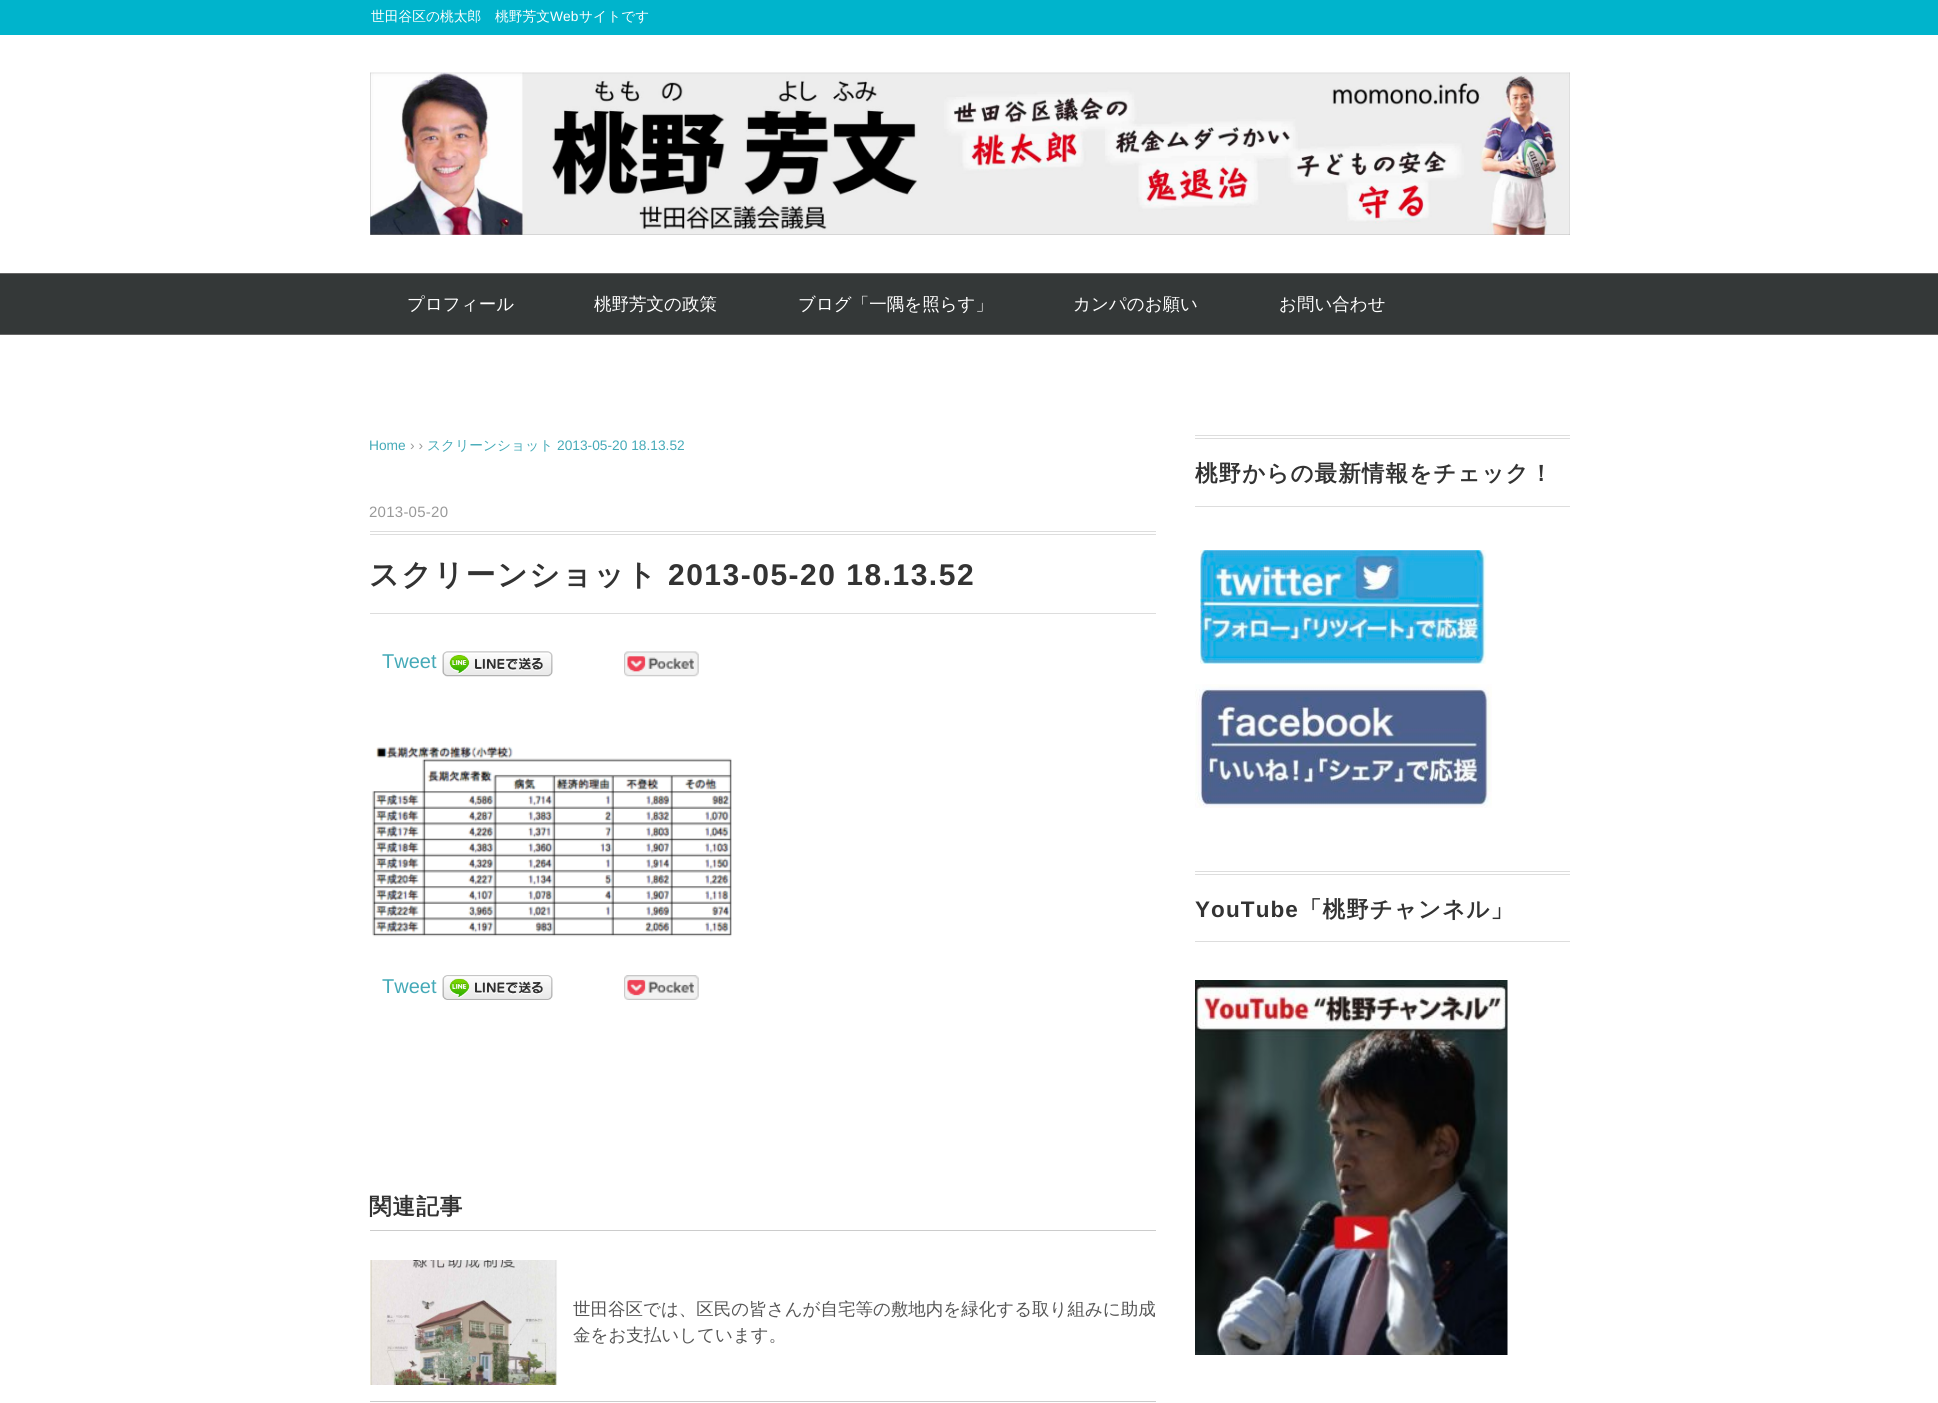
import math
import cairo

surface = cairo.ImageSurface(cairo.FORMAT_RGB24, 1938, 1403)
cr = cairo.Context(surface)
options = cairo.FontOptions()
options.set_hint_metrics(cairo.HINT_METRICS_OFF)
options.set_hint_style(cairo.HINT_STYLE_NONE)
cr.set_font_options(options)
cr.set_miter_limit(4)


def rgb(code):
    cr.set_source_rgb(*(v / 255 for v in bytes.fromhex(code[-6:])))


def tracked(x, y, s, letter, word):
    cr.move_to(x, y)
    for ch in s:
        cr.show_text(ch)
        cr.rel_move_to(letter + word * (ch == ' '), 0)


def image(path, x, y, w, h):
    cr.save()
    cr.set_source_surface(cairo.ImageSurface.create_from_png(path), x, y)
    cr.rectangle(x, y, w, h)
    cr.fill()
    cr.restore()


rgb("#ffffff")
cr.paint()
rgb("#00b4cc")
cr.rectangle(0, 0, 1938, 35)
cr.fill()
image("img/1.png", 370, 72, 1200, 163)
for x, y, w, h, color in [
    (0, 274, 1938, 60, "#343838"),
    (0, 273, 1938, 1, "#666666"),
    (0, 334, 1938, 1, "#666666"),
    (370, 531, 786, 1, "#dddddd"),
    (370, 534, 786, 1, "#dddddd"),
    (370, 613, 786, 1, "#dddddd"),
]:
    rgb(color)
    cr.rectangle(x, y, w, h)
    cr.fill()
image("img/2.png", 442, 651, 111, 26)
image("img/3.png", 624, 651, 75, 26)
image("img/4.png", 372, 746, 360, 191)
image("img/5.png", 442, 975, 111, 25)
image("img/6.png", 624, 975, 75, 25)
rgb("#cccccc")
cr.rectangle(370, 1230, 786, 1)
cr.fill()
cr.rectangle(370, 1401, 786, 1)
cr.fill()
image("img/7.png", 370, 1260, 188, 125)
for x, y, w, h, color in [
    (1195, 435, 375, 1, "#dddddd"),
    (1195, 438, 375, 1, "#dddddd"),
    (1195, 506, 375, 1, "#dddddd"),
]:
    rgb(color)
    cr.rectangle(x, y, w, h)
    cr.fill()
image("img/8.png", 1200, 550, 287, 114)
image("img/9.png", 1195, 684, 297, 124)
for x, y, w, h, color in [
    (1195, 871, 375, 1, "#dddddd"),
    (1195, 874, 375, 1, "#dddddd"),
    (1195, 941, 375, 1, "#dddddd"),
]:
    rgb(color)
    cr.rectangle(x, y, w, h)
    cr.fill()
image("img/10.png", 1195, 980, 313, 375)
cr.select_font_face("WenQuanYi Zen Hei Medium")
cr.set_font_size(13.75)
rgb("#ffffff")
cr.move_to(371, 21)
cr.show_text("世田谷区の桃太郎　桃野芳文")
cr.select_font_face("Liberation Sans")
cr.move_to(550, 21)
cr.show_text("Web")
cr.select_font_face("WenQuanYi Zen Hei Medium")
cr.move_to(579, 21)
cr.show_text("サイトです")
cr.set_font_size(17.5)
for x, y, s in [
    (407, 310, "プロフィール"),
    (594, 310, "桃野芳文の政策"),
    (798, 310, "ブログ「一隅を照らす」"),
    (1073, 310, "カンパのお願い"),
    (1279, 310, "お問い合わせ"),
]:
    cr.move_to(x, y)
    cr.show_text(s)
cr.select_font_face("Liberation Sans")
cr.set_font_size(13.75)
rgb("#45aab8")
cr.move_to(369, 450)
cr.show_text("Home")
rgb("#999999")
cr.move_to(410, 450)
cr.show_text("› ›")
cr.select_font_face("WenQuanYi Zen Hei Medium")
rgb("#45aab8")
cr.move_to(427, 450)
cr.show_text("スクリーンショット")
cr.select_font_face("Liberation Sans")
cr.move_to(557, 450)
cr.show_text("2013-05-20 18.13.52")
cr.set_font_size(15)
rgb("#999999")
tracked(369, 517, "2013-05-20", 0.25, 0)
cr.select_font_face("WenQuanYi Zen Hei", cairo.FONT_SLANT_NORMAL, cairo.FONT_WEIGHT_BOLD)
cr.set_font_size(30)
rgb("#333333")
tracked(369, 585, "スクリーンショット", 1.5, 0)
cr.select_font_face("Liberation Sans", cairo.FONT_SLANT_NORMAL, cairo.FONT_WEIGHT_BOLD)
tracked(668, 585, "2013-05-20 18.13.52", 1.5, 0)
cr.select_font_face("Liberation Sans")
cr.set_font_size(20)
rgb("#45aab8")
cr.move_to(382, 668)
cr.show_text("Tweet")
cr.move_to(382, 993)
cr.show_text("Tweet")
cr.select_font_face("WenQuanYi Zen Hei", cairo.FONT_SLANT_NORMAL, cairo.FONT_WEIGHT_BOLD)
cr.set_font_size(22.5)
rgb("#333333")
tracked(369, 1214, "関連記事", 1.1, 0)
cr.select_font_face("WenQuanYi Zen Hei Medium")
cr.set_font_size(17.5)
rgb("#555555")
cr.move_to(573, 1315)
cr.show_text("世田谷区では、区民の皆さんが自宅等の敷地内を緑化する取り組みに助成")
cr.move_to(573, 1341)
cr.show_text("金をお支払いしています。")
cr.select_font_face("WenQuanYi Zen Hei", cairo.FONT_SLANT_NORMAL, cairo.FONT_WEIGHT_BOLD)
cr.set_font_size(22.5)
rgb("#333333")
tracked(1195, 481, "桃野からの最新情報をチェック！", 1.1, 0)
cr.select_font_face("Liberation Sans", cairo.FONT_SLANT_NORMAL, cairo.FONT_WEIGHT_BOLD)
tracked(1195, 917, "YouTube", 1.1, 0)
cr.select_font_face("WenQuanYi Zen Hei", cairo.FONT_SLANT_NORMAL, cairo.FONT_WEIGHT_BOLD)
tracked(1299, 917, "「桃野チャンネル」", 1.1, 0)
surface.write_to_png("page.png")
